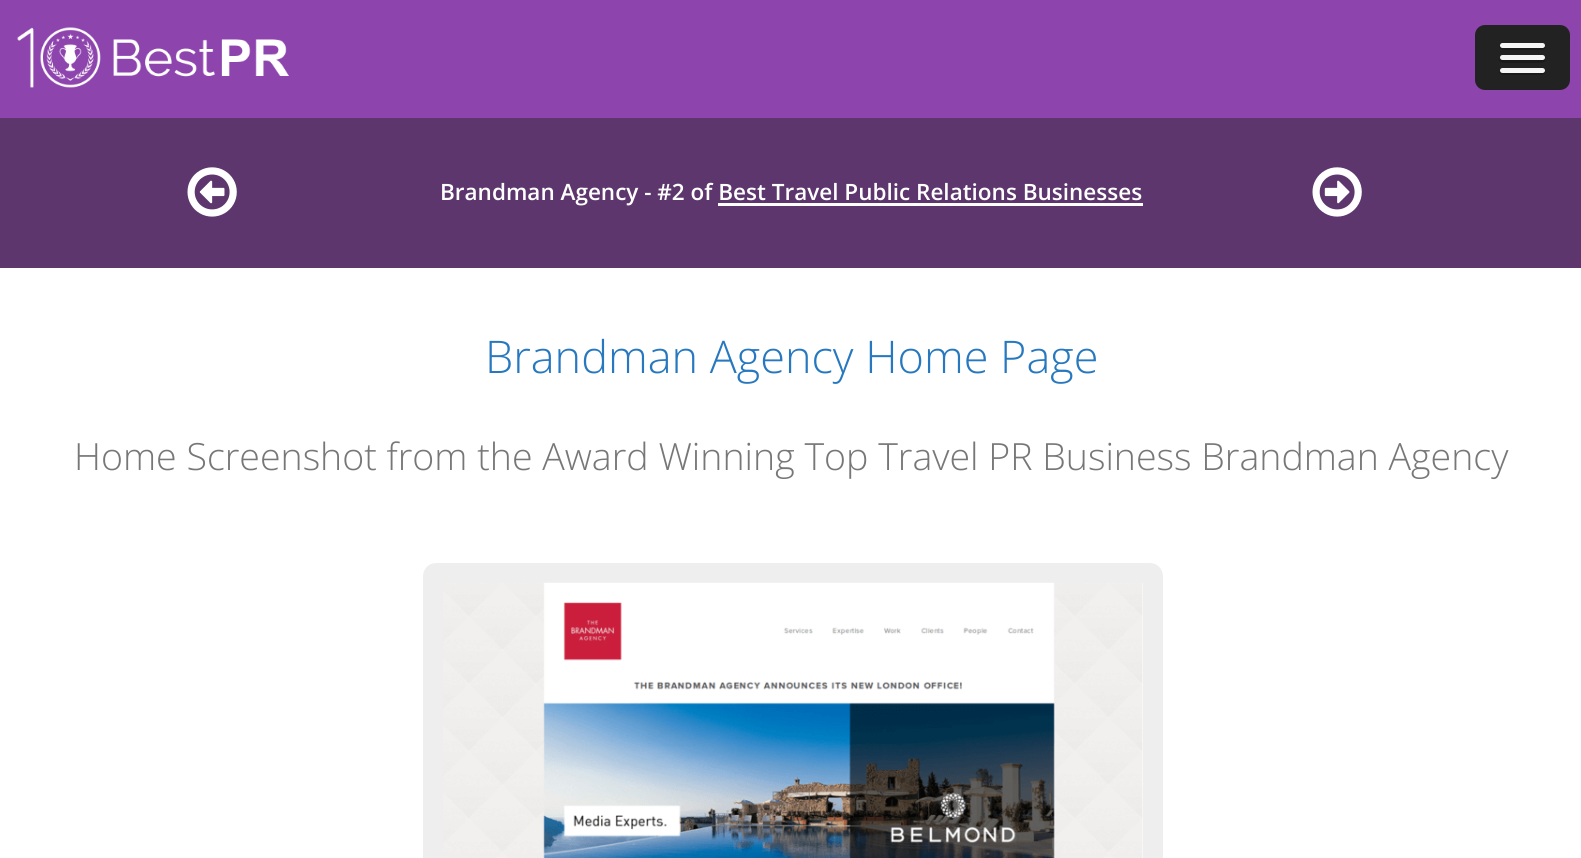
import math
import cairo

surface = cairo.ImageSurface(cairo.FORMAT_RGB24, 1581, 858)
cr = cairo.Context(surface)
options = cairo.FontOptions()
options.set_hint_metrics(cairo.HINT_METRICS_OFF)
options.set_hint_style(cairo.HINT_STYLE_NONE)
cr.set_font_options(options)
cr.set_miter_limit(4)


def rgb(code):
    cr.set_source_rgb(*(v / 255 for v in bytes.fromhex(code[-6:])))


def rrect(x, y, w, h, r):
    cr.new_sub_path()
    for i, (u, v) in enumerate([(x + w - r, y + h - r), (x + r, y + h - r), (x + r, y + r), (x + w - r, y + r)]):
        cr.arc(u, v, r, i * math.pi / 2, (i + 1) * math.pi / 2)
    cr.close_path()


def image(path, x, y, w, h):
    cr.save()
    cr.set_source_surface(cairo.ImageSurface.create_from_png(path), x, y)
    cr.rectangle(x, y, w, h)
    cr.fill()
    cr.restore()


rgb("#ffffff")
cr.paint()
rgb("#8e44ad")
cr.rectangle(0, 0, 1581, 118)
cr.fill()
rgb("#222222")
rrect(1475, 25, 95, 65, 10)
cr.fill()
rgb("#1a1a1a")
cr.new_path()
cr.move_to(1500, 46)
cr.curve_to(1497, 51, 1509, 50, 1509, 50)
cr.line_to(1536, 50)
cr.curve_to(1536, 50, 1548, 51, 1545, 46)
cr.curve_to(1544, 47, 1543, 48, 1542, 48)
cr.line_to(1502, 48)
cr.curve_to(1502, 48, 1501, 47, 1500, 46)
cr.close_path()
cr.fill()
rgb("#f5f5f5")
rrect(1500, 43, 45, 5, 2.5)
cr.fill()
rgb("#1a1a1a")
cr.new_path()
cr.move_to(1500, 59)
cr.curve_to(1497, 63, 1505, 63, 1509, 63)
cr.line_to(1536, 63)
cr.curve_to(1540, 63, 1548, 63, 1545, 59)
cr.line_to(1543, 60)
cr.line_to(1502, 60)
cr.close_path()
cr.fill()
rgb("#f5f5f5")
rrect(1500, 55, 45, 5, 2.5)
cr.fill()
rgb("#1a1a1a")
cr.new_path()
cr.move_to(1500, 71)
cr.curve_to(1497, 76, 1509, 75, 1509, 75)
cr.line_to(1536, 75)
cr.curve_to(1536, 75, 1548, 76, 1545, 71)
cr.curve_to(1544, 72, 1543, 72, 1542, 72)
cr.line_to(1502, 72)
cr.curve_to(1502, 72, 1501, 72, 1500, 71)
cr.close_path()
cr.fill()
rgb("#f5f5f5")
rrect(1500, 68, 45, 5, 2.5)
cr.fill()
image("img/1.png", 17, 27, 272, 61)
rgb("#5d366d")
cr.rectangle(0, 118, 1581, 150)
cr.fill()
image("img/2.png", 187, 167, 50, 50)
rgb("#ffffff")
cr.rectangle(718, 203, 425, 3)
cr.fill()
image("img/3.png", 1312, 167, 50, 50)
rrect(433, 573, 720, 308, 3)
rgb("#eeeeee")
cr.set_line_width(20)
cr.stroke()
image("img/4.png", 443, 582, 700, 276)
cr.select_font_face("Open Sans SemiBold")
cr.set_font_size(22.5)
rgb("#ffffff")
cr.move_to(440, 200)
cr.show_text("Brandman Agency - #2 of Best Travel Public Relations Businesses")
cr.select_font_face("Open Sans Light")
cr.set_font_size(45)
rgb("#2778bf")
cr.move_to(485, 373)
cr.show_text("Brandman Agency Home Page")
cr.set_font_size(37.5)
rgb("#777777")
cr.move_to(74, 470)
cr.show_text("Home Screenshot from the Award Winning Top Travel PR Business Brandman Agency")
surface.write_to_png("page.png")
